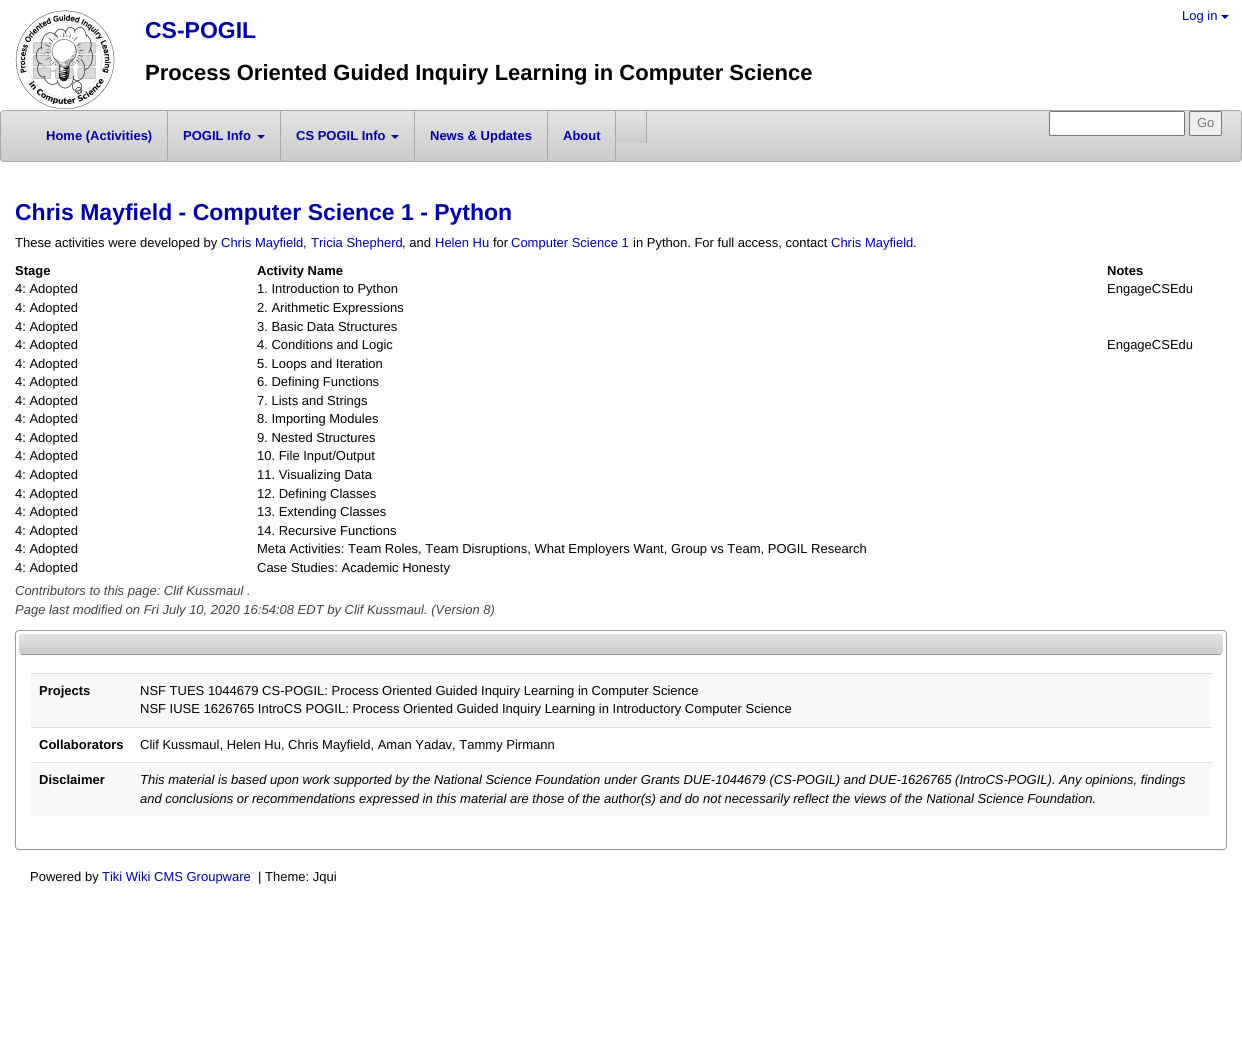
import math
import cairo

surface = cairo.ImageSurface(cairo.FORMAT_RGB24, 1242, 1059)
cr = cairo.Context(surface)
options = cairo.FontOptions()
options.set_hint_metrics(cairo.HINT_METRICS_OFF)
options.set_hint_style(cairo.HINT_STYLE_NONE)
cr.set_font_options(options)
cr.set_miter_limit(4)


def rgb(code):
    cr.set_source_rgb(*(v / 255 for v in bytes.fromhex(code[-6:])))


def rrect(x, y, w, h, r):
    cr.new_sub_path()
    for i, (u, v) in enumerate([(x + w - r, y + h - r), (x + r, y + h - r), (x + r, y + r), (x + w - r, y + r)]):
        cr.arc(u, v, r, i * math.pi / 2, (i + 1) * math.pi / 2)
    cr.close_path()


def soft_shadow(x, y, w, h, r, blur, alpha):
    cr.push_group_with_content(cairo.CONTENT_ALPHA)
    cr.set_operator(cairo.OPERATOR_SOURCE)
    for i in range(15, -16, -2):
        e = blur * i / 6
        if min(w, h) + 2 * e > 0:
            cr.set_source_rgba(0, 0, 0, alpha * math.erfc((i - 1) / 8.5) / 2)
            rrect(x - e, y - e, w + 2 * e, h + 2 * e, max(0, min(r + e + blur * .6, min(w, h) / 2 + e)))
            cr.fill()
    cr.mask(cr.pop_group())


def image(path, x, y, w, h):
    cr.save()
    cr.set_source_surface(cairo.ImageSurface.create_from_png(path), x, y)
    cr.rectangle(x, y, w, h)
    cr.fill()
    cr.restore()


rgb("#ffffff")
cr.paint()
rgb("#0001a6")
cr.new_path()
cr.move_to(1221, 15)
cr.line_to(1229, 15)
cr.line_to(1225, 19)
cr.close_path()
cr.fill()
image("img/1.png", 15, 10, 100, 99)
cr.save()
rrect(0, 110, 1242, 52, 4)
cr.clip()
gradient = cairo.LinearGradient(621, 111, 621, 161)
gradient.add_color_stop_rgba(0, 0.89, 0.89, 0.89, 1)
gradient.add_color_stop_rgba(1, 0.8, 0.8, 0.8, 1)
cr.set_source(gradient)
cr.rectangle(0, 111, 1242, 50)
cr.fill()
cr.restore()
rrect(0.5, 110.5, 1241, 51, 3.5)
rgb("#aaaaaa")
cr.set_line_width(1)
cr.stroke()
rgb("#ffffff")
rrect(1049.5, 111.5, 135, 24, 1.5)
cr.fill_preserve()
rgb("#767676")
cr.stroke()
rgb("#efefef")
rrect(1189.5, 111.5, 32, 24, 1.5)
cr.fill_preserve()
rgb("#767676")
cr.stroke()
rgb("#aaaaaa")
cr.rectangle(167, 111, 1, 50)
cr.fill()
cr.rectangle(280, 111, 1, 50)
cr.fill()
rgb("#0001a6")
cr.new_path()
cr.move_to(257, 135)
cr.line_to(265, 135)
cr.line_to(261, 139)
cr.close_path()
cr.fill()
rgb("#aaaaaa")
cr.rectangle(414, 111, 1, 50)
cr.fill()
rgb("#0001a6")
cr.new_path()
cr.move_to(391, 135)
cr.line_to(399, 135)
cr.line_to(395, 139)
cr.close_path()
cr.fill()
rgb("#aaaaaa")
cr.rectangle(547, 111, 1, 50)
cr.fill()
cr.rectangle(615, 111, 1, 50)
cr.fill()
gradient = cairo.LinearGradient(632, 111, 632, 143)
gradient.add_color_stop_rgba(0, 0.89, 0.89, 0.89, 1)
gradient.add_color_stop_rgba(1, 0.8, 0.8, 0.8, 1)
cr.set_source(gradient)
cr.rectangle(616, 120, 30, 23)
cr.fill()
rgb("#aaaaaa")
cr.rectangle(646, 111, 1, 32)
cr.fill()
rgb("#000000")
soft_shadow(15, 631, 1212, 220, 4, 0.5, 0.05)
rgb("#ffffff")
rrect(15.5, 630.5, 1211, 219, 3.5)
cr.fill_preserve()
rgb("#999999")
cr.stroke()
rgb("#f5f5f5")
cr.new_path()
cr.move_to(22, 634)
cr.line_to(1220, 634)
cr.curve_to(1221.5, 634, 1223, 635.5, 1223, 637)
cr.line_to(1223, 651)
cr.curve_to(1223, 653, 1221, 655, 1219, 655)
cr.line_to(23, 655)
cr.curve_to(21, 655, 19, 653, 19, 651)
cr.line_to(19, 637)
cr.curve_to(19, 635.5, 20.5, 634, 22, 634)
cr.close_path()
cr.fill()
cr.save()
cr.new_path()
cr.move_to(22, 634)
cr.line_to(1220, 634)
cr.curve_to(1221.5, 634, 1223, 635.5, 1223, 637)
cr.line_to(1223, 651)
cr.curve_to(1223, 653, 1221, 655, 1219, 655)
cr.line_to(23, 655)
cr.curve_to(21, 655, 19, 653, 19, 651)
cr.line_to(19, 637)
cr.curve_to(19, 635.5, 20.5, 634, 22, 634)
cr.close_path()
cr.clip()
gradient = cairo.LinearGradient(621, 634, 621, 654)
gradient.add_color_stop_rgba(0, 0.89, 0.89, 0.89, 1)
gradient.add_color_stop_rgba(1, 0.8, 0.8, 0.8, 1)
cr.set_source(gradient)
cr.new_path()
cr.move_to(22, 634)
cr.line_to(1220, 634)
cr.curve_to(1221.5, 634, 1223, 635.5, 1223, 637)
cr.line_to(1223, 654)
cr.line_to(19, 654)
cr.line_to(19, 637)
cr.curve_to(19, 635.5, 20.5, 634, 22, 634)
cr.close_path()
cr.fill()
cr.restore()
for x, y, w, h, color in [
    (21, 654, 1200, 1, "#999999"),
    (31, 674, 1180, 53, "#f9f9f9"),
    (31, 673, 1181, 1, "#dddddd"),
    (31, 727, 1181, 1, "#dddddd"),
    (31, 763, 1180, 53, "#f9f9f9"),
    (31, 762, 1181, 1, "#dddddd"),
]:
    rgb(color)
    cr.rectangle(x, y, w, h)
    cr.fill()
cr.select_font_face("Liberation Sans")
cr.set_font_size(13)
rgb("#0001a6")
cr.move_to(1182, 20)
cr.show_text("Log in")
cr.select_font_face("Liberation Sans", cairo.FONT_SLANT_NORMAL, cairo.FONT_WEIGHT_BOLD)
cr.set_font_size(23)
cr.move_to(145, 38)
cr.show_text("CS-POGIL")
cr.set_font_size(22)
rgb("#000000")
cr.move_to(145, 80)
cr.show_text("Process Oriented Guided Inquiry Learning in Computer Science")
cr.select_font_face("Liberation Sans")
cr.set_font_size(13)
rgb("#777777")
cr.move_to(1197, 127)
cr.show_text("Go")
cr.select_font_face("Liberation Sans", cairo.FONT_SLANT_NORMAL, cairo.FONT_WEIGHT_BOLD)
rgb("#0001a6")
for x, y, s in [
    (46, 140, "Home (Activities)"),
    (183, 140, "POGIL Info"),
    (296, 140, "CS POGIL Info"),
    (430, 140, "News & Updates"),
    (563, 140, "About"),
]:
    cr.move_to(x, y)
    cr.show_text(s)
cr.set_font_size(23)
cr.move_to(15, 220)
cr.show_text("Chris Mayfield - Computer Science 1 - Python")
cr.select_font_face("Liberation Sans")
cr.set_font_size(13)
rgb("#000000")
cr.move_to(15, 247)
cr.show_text("These activities were developed by")
rgb("#0001a6")
cr.move_to(221, 247)
cr.show_text("Chris Mayfield")
rgb("#000000")
cr.move_to(303, 247)
cr.show_text(",")
rgb("#0001a6")
cr.move_to(311, 247)
cr.show_text("Tricia Shepherd")
rgb("#000000")
cr.move_to(402, 247)
cr.show_text(", and")
rgb("#0001a6")
cr.move_to(435, 247)
cr.show_text("Helen Hu")
rgb("#000000")
cr.move_to(493, 247)
cr.show_text("for")
rgb("#0001a6")
cr.move_to(511, 247)
cr.show_text("Computer Science 1")
rgb("#000000")
cr.move_to(633, 247)
cr.show_text("in Python. For full access, contact")
rgb("#0001a6")
cr.move_to(831, 247)
cr.show_text("Chris Mayfield")
rgb("#000000")
cr.move_to(913, 247)
cr.show_text(".")
cr.select_font_face("Liberation Sans", cairo.FONT_SLANT_NORMAL, cairo.FONT_WEIGHT_BOLD)
for x, y, s in [
    (15, 275, "Stage"),
    (257, 275, "Activity Name"),
    (1107, 275, "Notes"),
]:
    cr.move_to(x, y)
    cr.show_text(s)
cr.select_font_face("Liberation Sans")
for x, y, s in [
    (15, 293, "4: Adopted"),
    (257, 293, "1. Introduction to Python"),
    (1107, 293, "EngageCSEdu"),
    (15, 312, "4: Adopted"),
    (257, 312, "2. Arithmetic Expressions"),
    (15, 331, "4: Adopted"),
    (257, 331, "3. Basic Data Structures"),
    (15, 349, "4: Adopted"),
    (257, 349, "4. Conditions and Logic"),
    (1107, 349, "EngageCSEdu"),
    (15, 368, "4: Adopted"),
    (257, 368, "5. Loops and Iteration"),
    (15, 386, "4: Adopted"),
    (257, 386, "6. Defining Functions"),
    (15, 405, "4: Adopted"),
    (257, 405, "7. Lists and Strings"),
    (15, 423, "4: Adopted"),
    (257, 423, "8. Importing Modules"),
    (15, 442, "4: Adopted"),
    (257, 442, "9. Nested Structures"),
    (15, 460, "4: Adopted"),
    (257, 460, "10. File Input/Output"),
    (15, 479, "4: Adopted"),
    (257, 479, "11. Visualizing Data"),
    (15, 498, "4: Adopted"),
    (257, 498, "12. Defining Classes"),
    (15, 516, "4: Adopted"),
    (257, 516, "13. Extending Classes"),
    (15, 535, "4: Adopted"),
    (257, 535, "14. Recursive Functions"),
    (15, 553, "4: Adopted"),
    (257, 553, "Meta Activities: Team Roles, Team Disruptions, What Employers Want, Group vs Team, POGIL Research"),
    (15, 572, "4: Adopted"),
    (257, 572, "Case Studies: Academic Honesty"),
]:
    cr.move_to(x, y)
    cr.show_text(s)
cr.select_font_face("Liberation Sans", cairo.FONT_SLANT_ITALIC)
rgb("#404040")
cr.move_to(15, 595)
cr.show_text("Contributors to this page: Clif Kussmaul .")
cr.move_to(15, 614)
cr.show_text("Page last modified on Fri July 10, 2020 16:54:08 EDT by Clif Kussmaul. (Version 8)")
cr.select_font_face("Liberation Sans", cairo.FONT_SLANT_NORMAL, cairo.FONT_WEIGHT_BOLD)
rgb("#000000")
cr.move_to(39, 695)
cr.show_text("Projects")
cr.select_font_face("Liberation Sans")
cr.move_to(140, 695)
cr.show_text("NSF TUES 1044679 CS-POGIL: Process Oriented Guided Inquiry Learning in Computer Science")
cr.move_to(140, 713)
cr.show_text("NSF IUSE 1626765 IntroCS POGIL: Process Oriented Guided Inquiry Learning in Introductory Computer Science")
cr.select_font_face("Liberation Sans", cairo.FONT_SLANT_NORMAL, cairo.FONT_WEIGHT_BOLD)
cr.move_to(39, 749)
cr.show_text("Collaborators")
cr.select_font_face("Liberation Sans")
cr.move_to(140, 749)
cr.show_text("Clif Kussmaul, Helen Hu, Chris Mayfield, Aman Yadav, Tammy Pirmann")
cr.select_font_face("Liberation Sans", cairo.FONT_SLANT_NORMAL, cairo.FONT_WEIGHT_BOLD)
cr.move_to(39, 784)
cr.show_text("Disclaimer")
cr.select_font_face("Liberation Sans", cairo.FONT_SLANT_ITALIC)
cr.move_to(140, 784)
cr.show_text("This material is based upon work supported by the National Science Foundation under Grants DUE-1044679 (CS-POGIL) and DUE-1626765 (IntroCS-POGIL). Any opinions, findings")
cr.move_to(140, 803)
cr.show_text("and conclusions or recommendations expressed in this material are those of the author(s) and do not necessarily reflect the views of the National Science Foundation.")
cr.select_font_face("Liberation Sans")
cr.move_to(30, 881)
cr.show_text("Powered by")
rgb("#0001a6")
cr.move_to(102, 881)
cr.show_text("Tiki Wiki CMS Groupware")
rgb("#000000")
cr.move_to(258, 881)
cr.show_text("| Theme: Jqui")
surface.write_to_png("page.png")
